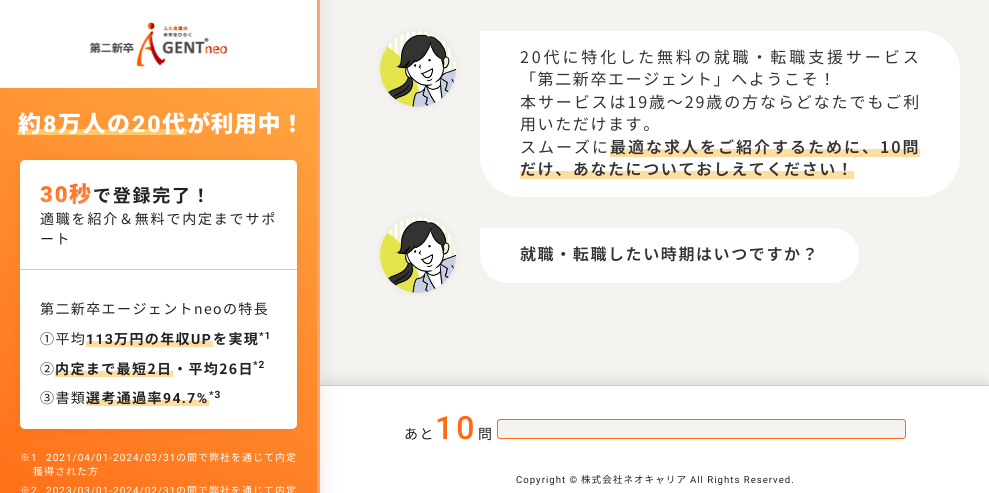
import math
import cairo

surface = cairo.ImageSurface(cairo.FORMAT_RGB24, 989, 493)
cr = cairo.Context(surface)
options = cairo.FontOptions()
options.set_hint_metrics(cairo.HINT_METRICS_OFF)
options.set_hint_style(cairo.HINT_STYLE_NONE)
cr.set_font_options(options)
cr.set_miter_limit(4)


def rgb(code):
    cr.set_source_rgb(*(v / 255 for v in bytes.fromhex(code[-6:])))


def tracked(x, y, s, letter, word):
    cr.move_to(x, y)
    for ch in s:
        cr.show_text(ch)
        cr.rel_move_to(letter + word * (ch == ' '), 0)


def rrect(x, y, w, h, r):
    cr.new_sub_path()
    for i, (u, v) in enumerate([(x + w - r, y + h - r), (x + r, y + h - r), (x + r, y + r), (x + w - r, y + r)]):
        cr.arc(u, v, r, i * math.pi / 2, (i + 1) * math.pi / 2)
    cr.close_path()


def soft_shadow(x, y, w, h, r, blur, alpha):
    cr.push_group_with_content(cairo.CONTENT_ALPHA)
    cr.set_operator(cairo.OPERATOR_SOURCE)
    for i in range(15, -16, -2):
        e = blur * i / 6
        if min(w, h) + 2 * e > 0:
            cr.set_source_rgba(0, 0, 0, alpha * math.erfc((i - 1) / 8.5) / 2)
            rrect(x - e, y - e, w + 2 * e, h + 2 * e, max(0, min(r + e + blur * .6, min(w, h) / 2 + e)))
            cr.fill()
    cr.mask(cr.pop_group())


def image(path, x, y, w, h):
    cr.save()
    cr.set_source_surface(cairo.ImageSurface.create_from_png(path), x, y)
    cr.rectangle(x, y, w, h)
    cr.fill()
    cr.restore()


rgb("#f5f3ef")
cr.paint()
rgb("#000000")
soft_shadow(325, 390, 659, 98, 0, 10, 0.3)
rgb("#ffffff")
cr.rectangle(320, 386, 669, 107)
cr.fill()
rgb("#cccccc")
cr.rectangle(320, 385, 669, 1)
cr.fill()
rgb("#000000")
soft_shadow(0, 0, 320, 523, 0, 10, 0.1)
gradient = cairo.LinearGradient(-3, 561, 320, 1.7)
gradient.add_color_stop_rgba(0, 1, 0.416, 0.078, 1)
gradient.add_color_stop_rgba(1, 1, 0.678, 0.278, 1)
cr.set_source(gradient)
cr.rectangle(0, 88, 317, 405)
cr.fill()
rgb("#ffa36e")
cr.rectangle(317, 0, 3, 493)
cr.fill()
rgb("#ffffff")
cr.rectangle(0, 0, 317, 88)
cr.fill()
image("img/1.png", 89, 21, 139, 46)
rgb("#ffca6b")
cr.new_path()
cr.move_to(19, 129)
cr.line_to(188, 129)
cr.line_to(186, 135)
cr.line_to(17, 135)
cr.close_path()
cr.fill()
rgb("#000000")
soft_shadow(30, 170, 257, 249, 0, 10, 0.2)
rgb("#ffffff")
rrect(20, 160, 277, 269, 5)
cr.fill()
for x, y, w, h, color in [
    (20, 269, 277, 1, "#cccccc"),
    (86, 341, 127, 6, "#ffdda0"),
    (55, 371, 118, 6, "#ffdda0"),
    (86, 400, 123, 6, "#ffdda0"),
]:
    rgb(color)
    cr.rectangle(x, y, w, h)
    cr.fill()
rgb("#000000")
soft_shadow(385, 36, 66, 66, 33, 6, 0.15)
image("img/2.png", 380, 31, 76, 76)
rgb("#ffffff")
cr.new_path()
cr.move_to(480, 31)
cr.line_to(920, 31)
cr.curve_to(942, 31, 960, 49, 960, 71)
cr.line_to(960, 157)
cr.curve_to(960, 179, 942, 197, 920, 197)
cr.line_to(520, 197)
cr.curve_to(498, 197, 480, 179, 480, 157)
cr.close_path()
cr.fill()
rgb("#ffdda0")
cr.rectangle(610, 149, 310, 8)
cr.fill()
cr.rectangle(520, 171, 334, 8)
cr.fill()
rgb("#000000")
soft_shadow(385, 222, 66, 66, 33, 6, 0.15)
image("img/2.png", 380, 217, 76, 76)
rgb("#ffffff")
cr.new_path()
cr.move_to(480, 228)
cr.line_to(831.5, 228)
cr.curve_to(846.5, 228, 859, 240.5, 859, 255.5)
cr.curve_to(859, 270.5, 846.5, 283, 831.5, 283)
cr.line_to(507.5, 283)
cr.curve_to(492.5, 283, 480, 270.5, 480, 255.5)
cr.close_path()
cr.fill()
rgb("#f5f3ef")
rrect(497.5, 419.5, 408, 19, 2.5)
cr.fill_preserve()
rgb("#ff6a14")
cr.set_line_width(1)
cr.stroke()
cr.select_font_face("Noto Sans JP Black")
cr.set_font_size(23)
rgb("#ffffff")
tracked(18, 132, "約", 1.5, 0)
cr.select_font_face("Roboto Black")
tracked(43, 132, "8", 2, 0)
cr.select_font_face("Noto Sans JP Black")
tracked(58, 132, "万人の", 1.5, 0)
cr.select_font_face("Roboto Black")
tracked(132, 132, "20", 2, 0)
cr.select_font_face("Noto Sans JP Black")
tracked(162, 132, "代", 1.5, 0)
tracked(187, 132, "が利用中！", 0.5, 0)
cr.select_font_face("Roboto Black")
cr.set_font_size(22)
gradient = cairo.LinearGradient(67, 182, 67, 207)
gradient.add_color_stop_rgba(0, 1, 0.416, 0.078, 1)
gradient.add_color_stop_rgba(1, 1, 0.541, 0.278, 1)
cr.set_source(gradient)
tracked(40, 202, "30", 2, 0)
cr.select_font_face("Noto Sans JP Black")
tracked(69, 202, "秒", 2, 0)
cr.select_font_face("Noto Sans JP", cairo.FONT_SLANT_NORMAL, cairo.FONT_WEIGHT_BOLD)
cr.set_font_size(18)
rgb("#222222")
tracked(93, 202, "で登録完了！", 1.75, 0)
cr.select_font_face("Noto Sans JP")
cr.set_font_size(14)
tracked(40, 224, "適職を紹介＆無料で内定までサポ", 1.8, 0)
for x, y, s in [
    (40, 244, "ート"),
    (40, 314, "第二新卒エージェントneoの特長"),
    (40, 344, "①平均"),
]:
    tracked(x, y, s, 1.4, 0)
cr.select_font_face("Roboto", cairo.FONT_SLANT_NORMAL, cairo.FONT_WEIGHT_BOLD)
tracked(86, 344, "113", 1.4, 0)
cr.select_font_face("Noto Sans JP", cairo.FONT_SLANT_NORMAL, cairo.FONT_WEIGHT_BOLD)
tracked(114, 344, "万円の年収", 1.4, 0)
cr.select_font_face("Roboto", cairo.FONT_SLANT_NORMAL, cairo.FONT_WEIGHT_BOLD)
tracked(191, 344, "UP", 1.4, 0)
cr.select_font_face("Noto Sans JP", cairo.FONT_SLANT_NORMAL, cairo.FONT_WEIGHT_BOLD)
tracked(213, 344, "を実現", 1.4, 0)
cr.select_font_face("Roboto", cairo.FONT_SLANT_NORMAL, cairo.FONT_WEIGHT_BOLD)
cr.set_font_size(10)
tracked(259, 339, "*1", 1, 0)
cr.select_font_face("Noto Sans JP")
cr.set_font_size(14)
tracked(40, 374, "②", 1.4, 0)
cr.select_font_face("Noto Sans JP", cairo.FONT_SLANT_NORMAL, cairo.FONT_WEIGHT_BOLD)
tracked(55, 374, "内定まで最短2日", 1.4, 0)
tracked(173, 374, "・平均26日", 1.4, 0)
cr.select_font_face("Roboto", cairo.FONT_SLANT_NORMAL, cairo.FONT_WEIGHT_BOLD)
cr.set_font_size(10)
tracked(253, 368, "*2", 1, 0)
cr.select_font_face("Noto Sans JP")
cr.set_font_size(14)
tracked(40, 403, "③書類", 1.4, 0)
cr.select_font_face("Noto Sans JP", cairo.FONT_SLANT_NORMAL, cairo.FONT_WEIGHT_BOLD)
tracked(86, 403, "選考通過率", 1.4, 0)
cr.select_font_face("Roboto", cairo.FONT_SLANT_NORMAL, cairo.FONT_WEIGHT_BOLD)
tracked(163, 403, "94.7%", 1.4, 0)
cr.set_font_size(10)
tracked(209, 398, "*3", 1, 0)
cr.select_font_face("Noto Sans JP")
rgb("#ffffff")
tracked(20, 461, "※", 1, 0)
cr.select_font_face("Roboto")
tracked(31, 461, "1 2021/04/01-2024/03/31", 1, 5)
cr.select_font_face("Noto Sans JP")
for x, y, s in [
    (176, 461, "の間で弊社を通じて内定"),
    (33, 475, "獲得された方"),
    (20, 494, "※"),
]:
    tracked(x, y, s, 1, 0)
cr.select_font_face("Roboto")
tracked(31, 494, "2 2023/03/01-2024/02/31", 1, 5)
cr.select_font_face("Noto Sans JP")
tracked(176, 494, "の間で弊社を通じて内定", 1, 0)
cr.set_font_size(16)
rgb("#333333")
tracked(520, 63, "20代に特化した無料の就職・転職支援サービス", 2.9, 0)
tracked(520, 85, "「第二新卒エージェント」へようこそ！", 1.6, 0)
tracked(520, 108, "本サービスは19歳〜29歳の方ならどなたでもご利", 1.9, 0)
tracked(520, 130, "用いただけます。", 1.6, 0)
tracked(520, 153, "スムーズに", 2, 0)
cr.select_font_face("Noto Sans JP SemiBold")
tracked(610, 153, "最適な求人をご紹介するために、10問", 2, 0)
tracked(520, 175, "だけ、あなたについておしえてください！", 1.6, 0)
tracked(520, 260, "就職・転職したい時期はいつですか？", 1.6, 0)
cr.select_font_face("Noto Sans JP")
cr.set_font_size(14)
rgb("#222222")
tracked(404, 439, "あと", 1.4, 0)
cr.select_font_face("Roboto Medium")
cr.set_font_size(32)
rgb("#ff6a14")
tracked(435, 439, "10", 3, 0)
cr.select_font_face("Noto Sans JP")
cr.set_font_size(14)
rgb("#222222")
tracked(478, 439, "問", 1.4, 0)
cr.select_font_face("Roboto")
cr.set_font_size(9.6)
tracked(516, 483, "Copyright ©", 1, 0)
cr.select_font_face("Noto Sans JP")
tracked(581, 483, "株式会社ネオキャリア", 1, 0)
cr.select_font_face("Roboto")
tracked(690, 483, "All Rights Reserved.", 1, 0)
surface.write_to_png("page.png")
